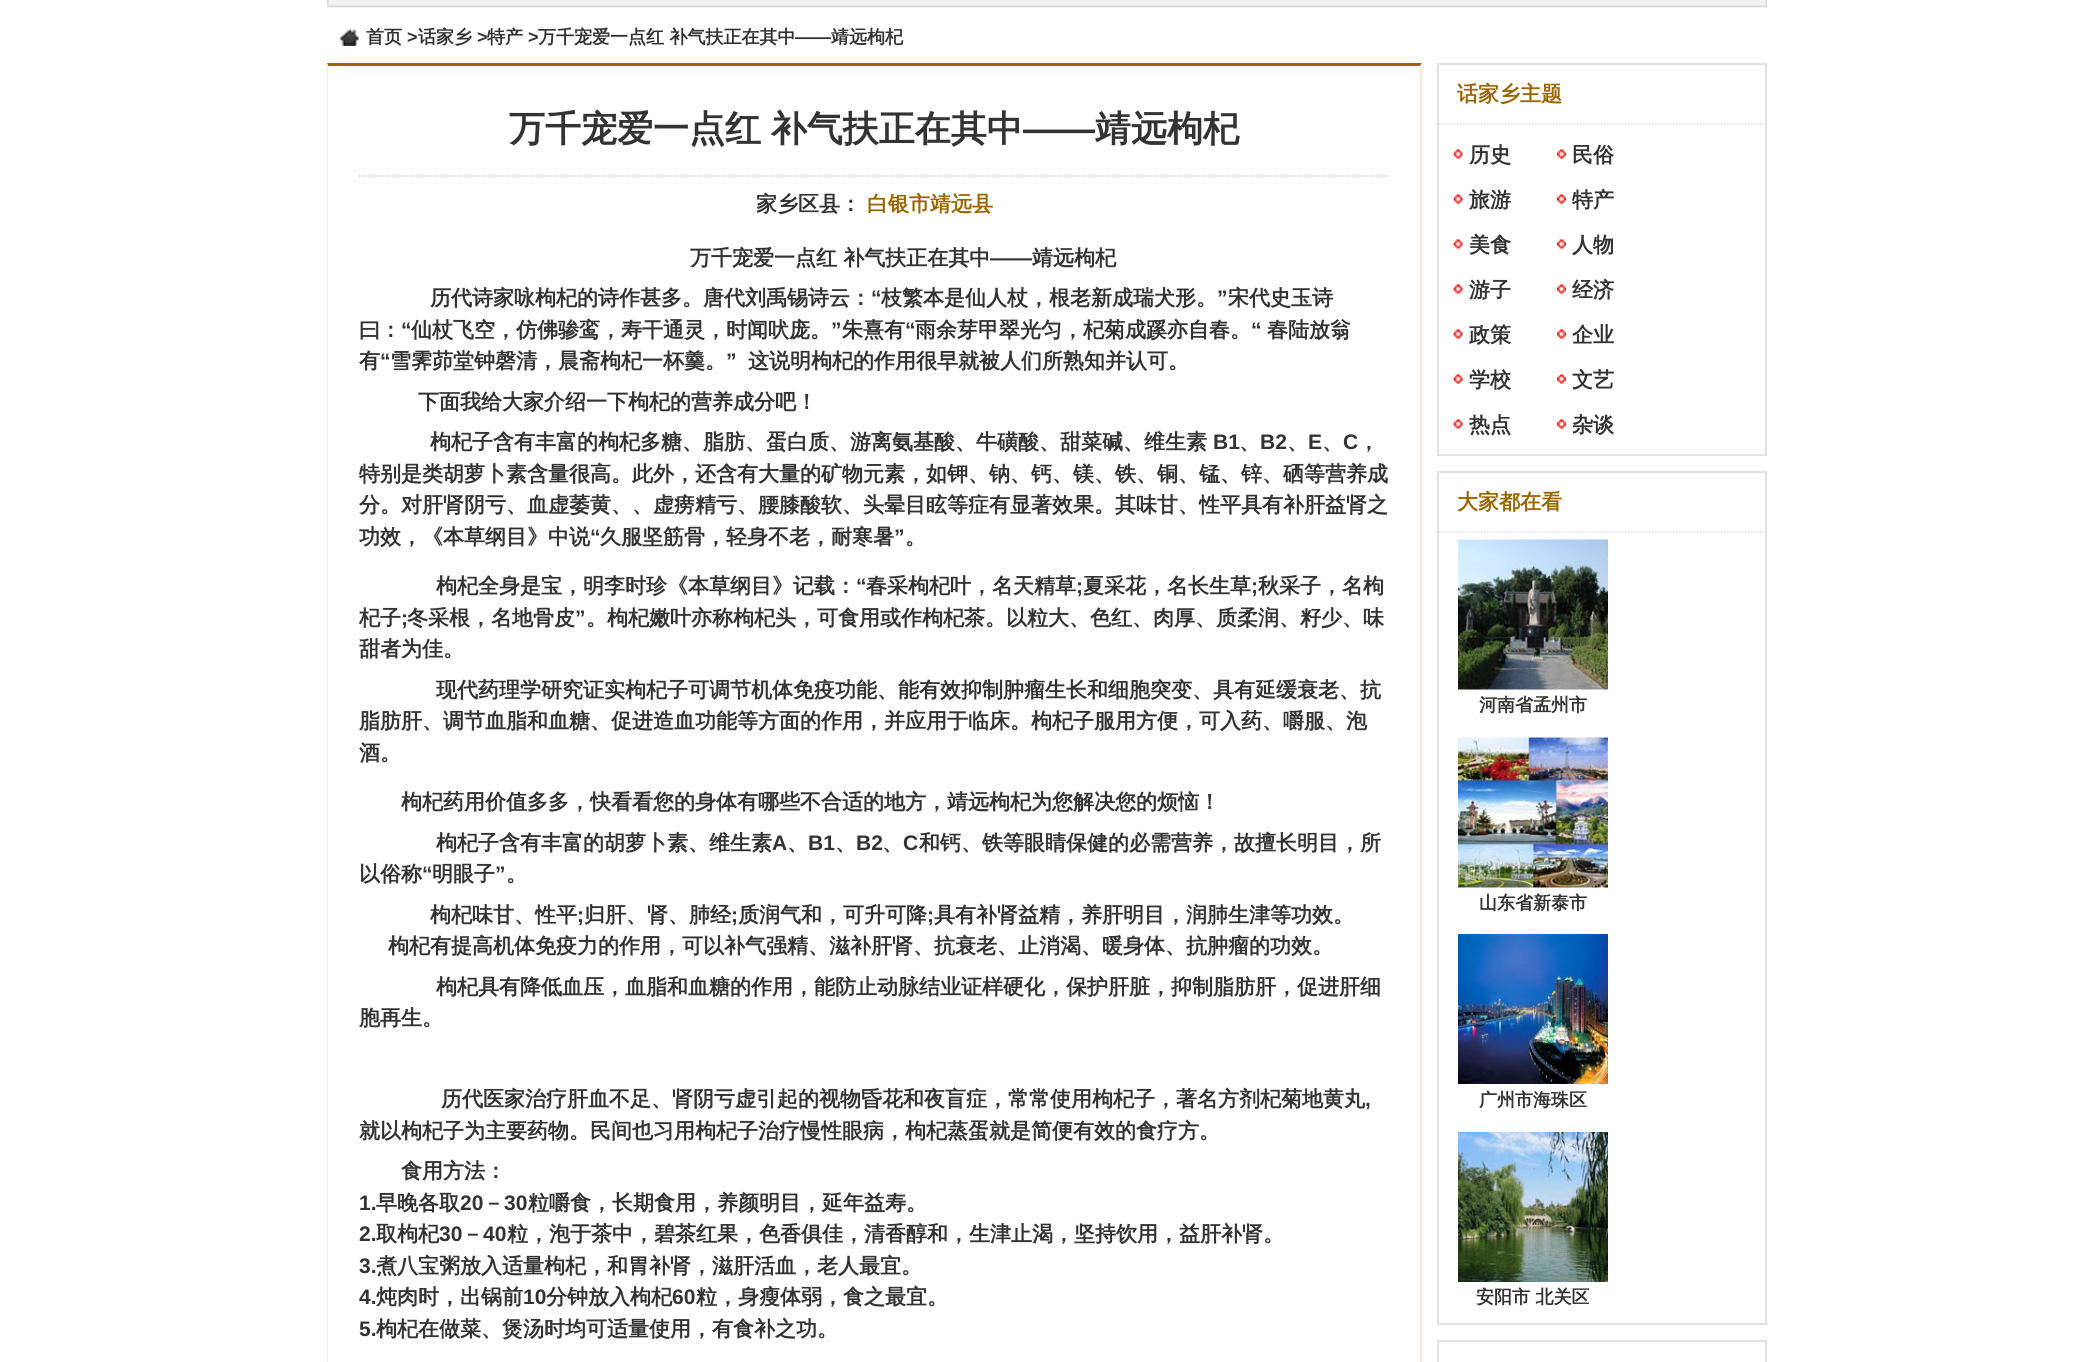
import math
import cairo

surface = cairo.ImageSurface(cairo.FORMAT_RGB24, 2093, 1362)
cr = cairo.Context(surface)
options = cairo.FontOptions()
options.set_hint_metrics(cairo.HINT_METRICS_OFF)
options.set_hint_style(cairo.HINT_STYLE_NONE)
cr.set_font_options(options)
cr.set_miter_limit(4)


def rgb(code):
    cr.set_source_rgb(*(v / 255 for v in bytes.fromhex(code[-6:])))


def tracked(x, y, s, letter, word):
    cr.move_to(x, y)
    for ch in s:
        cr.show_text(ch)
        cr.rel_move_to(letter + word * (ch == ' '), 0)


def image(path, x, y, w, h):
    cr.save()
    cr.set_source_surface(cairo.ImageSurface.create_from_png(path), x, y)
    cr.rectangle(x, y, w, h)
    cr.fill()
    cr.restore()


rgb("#ffffff")
cr.paint()
rgb("#f1f1f1")
cr.rectangle(327, 7, 1440, 1)
cr.fill()
image("img/1.png", 327, 0, 1440, 7)
image("img/2.png", 339, 29, 20, 17)
rgb("#996600")
cr.new_path()
cr.move_to(327, 63)
cr.line_to(1422, 63)
cr.line_to(1420, 66)
cr.line_to(328, 66)
cr.close_path()
cr.fill()
rgb("#fce9d1")
cr.new_path()
cr.move_to(1422, 63)
cr.line_to(1422, 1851)
cr.line_to(1420, 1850)
cr.line_to(1420, 66)
cr.close_path()
cr.fill()
cr.new_path()
cr.move_to(327, 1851)
cr.line_to(327, 63)
cr.line_to(328, 66)
cr.line_to(328, 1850)
cr.close_path()
cr.fill()
cr.new_path()
cr.move_to(358.5, 176)
cr.line_to(1390.5, 176)
rgb("#cccccc")
cr.set_line_width(1.5)
cr.set_dash([1.5, 1.5])
cr.stroke()
cr.rectangle(1438, 64, 328, 391)
rgb("#e1e1e1")
cr.set_line_width(2)
cr.set_dash([])
cr.stroke()
cr.new_path()
cr.move_to(1438.5, 124)
cr.line_to(1765.5, 124)
cr.set_line_width(1.5)
cr.set_dash([1.5, 1.5])
cr.stroke()
image("img/3.png", 1453, 149, 10, 10)
image("img/4.png", 1557, 149, 9, 10)
image("img/3.png", 1453, 194, 10, 10)
image("img/4.png", 1557, 194, 9, 10)
image("img/3.png", 1453, 239, 10, 10)
image("img/4.png", 1557, 239, 9, 10)
image("img/3.png", 1453, 284, 10, 10)
image("img/4.png", 1557, 284, 9, 10)
image("img/3.png", 1453, 329, 10, 10)
image("img/4.png", 1557, 329, 9, 10)
image("img/3.png", 1453, 374, 10, 10)
image("img/4.png", 1557, 374, 9, 10)
image("img/3.png", 1453, 419, 10, 10)
image("img/4.png", 1557, 419, 9, 10)
cr.rectangle(1438, 472, 328, 852)
cr.set_line_width(2)
cr.set_dash([])
cr.stroke()
cr.new_path()
cr.move_to(1438.5, 532)
cr.line_to(1765.5, 532)
cr.set_line_width(1.5)
cr.set_dash([1.5, 1.5])
cr.stroke()
image("img/5.png", 1458, 539, 150, 151)
image("img/6.png", 1458, 737, 150, 151)
image("img/7.png", 1458, 934, 150, 150)
image("img/8.png", 1458, 1132, 150, 150)
cr.rectangle(1438, 1341, 328, 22)
cr.set_line_width(2)
cr.set_dash([])
cr.stroke()
cr.select_font_face("WenQuanYi Zen Hei", cairo.FONT_SLANT_NORMAL, cairo.FONT_WEIGHT_BOLD)
cr.set_font_size(18)
rgb("#333333")
cr.move_to(366, 43)
cr.show_text("首页")
cr.select_font_face("Liberation Sans", cairo.FONT_SLANT_NORMAL, cairo.FONT_WEIGHT_BOLD)
cr.move_to(407, 43)
cr.show_text(">")
cr.select_font_face("WenQuanYi Zen Hei", cairo.FONT_SLANT_NORMAL, cairo.FONT_WEIGHT_BOLD)
cr.move_to(418, 43)
cr.show_text("话家乡")
cr.select_font_face("Liberation Sans", cairo.FONT_SLANT_NORMAL, cairo.FONT_WEIGHT_BOLD)
cr.move_to(477, 43)
cr.show_text(">")
cr.select_font_face("WenQuanYi Zen Hei", cairo.FONT_SLANT_NORMAL, cairo.FONT_WEIGHT_BOLD)
cr.move_to(487, 43)
cr.show_text("特产")
cr.select_font_face("Liberation Sans", cairo.FONT_SLANT_NORMAL, cairo.FONT_WEIGHT_BOLD)
cr.move_to(528, 43)
cr.show_text(">")
cr.select_font_face("WenQuanYi Zen Hei", cairo.FONT_SLANT_NORMAL, cairo.FONT_WEIGHT_BOLD)
cr.move_to(538, 43)
cr.show_text("万千宠爱一点红 补气扶正在其中")
cr.select_font_face("Liberation Sans", cairo.FONT_SLANT_NORMAL, cairo.FONT_WEIGHT_BOLD)
cr.move_to(795, 43)
cr.show_text("——")
cr.select_font_face("WenQuanYi Zen Hei", cairo.FONT_SLANT_NORMAL, cairo.FONT_WEIGHT_BOLD)
cr.move_to(831, 43)
cr.show_text("靖远枸杞")
cr.set_font_size(36)
tracked(509, 141, "万千宠爱一点红 补气扶正在其中", 0, -1)
cr.select_font_face("Liberation Sans", cairo.FONT_SLANT_NORMAL, cairo.FONT_WEIGHT_BOLD)
cr.move_to(1023, 141)
cr.show_text("——")
cr.select_font_face("WenQuanYi Zen Hei", cairo.FONT_SLANT_NORMAL, cairo.FONT_WEIGHT_BOLD)
cr.move_to(1095, 141)
cr.show_text("靖远枸杞")
cr.set_font_size(21)
cr.move_to(756, 211)
cr.show_text("家乡区县：")
rgb("#996600")
cr.move_to(867, 211)
cr.show_text("白银市靖远县")
rgb("#333333")
cr.move_to(690, 265)
cr.show_text("万千宠爱一点红 补气扶正在其中")
cr.select_font_face("Liberation Sans", cairo.FONT_SLANT_NORMAL, cairo.FONT_WEIGHT_BOLD)
cr.move_to(990, 265)
cr.show_text("——")
cr.select_font_face("WenQuanYi Zen Hei", cairo.FONT_SLANT_NORMAL, cairo.FONT_WEIGHT_BOLD)
cr.move_to(1032, 265)
cr.show_text("靖远枸杞")
cr.move_to(430, 305)
cr.show_text("历代诗家咏枸杞的诗作甚多。唐代刘禹锡诗云：")
cr.select_font_face("Liberation Sans", cairo.FONT_SLANT_NORMAL, cairo.FONT_WEIGHT_BOLD)
cr.move_to(871, 305)
cr.show_text("“")
cr.select_font_face("WenQuanYi Zen Hei", cairo.FONT_SLANT_NORMAL, cairo.FONT_WEIGHT_BOLD)
cr.move_to(881, 305)
cr.show_text("枝繁本是仙人杖，根老新成瑞犬形。")
cr.select_font_face("Liberation Sans", cairo.FONT_SLANT_NORMAL, cairo.FONT_WEIGHT_BOLD)
cr.move_to(1217, 305)
cr.show_text("”")
cr.select_font_face("WenQuanYi Zen Hei", cairo.FONT_SLANT_NORMAL, cairo.FONT_WEIGHT_BOLD)
cr.move_to(1228, 305)
cr.show_text("宋代史玉诗")
cr.move_to(359, 337)
cr.show_text("曰：")
cr.select_font_face("Liberation Sans", cairo.FONT_SLANT_NORMAL, cairo.FONT_WEIGHT_BOLD)
cr.move_to(401, 337)
cr.show_text("“")
cr.select_font_face("WenQuanYi Zen Hei", cairo.FONT_SLANT_NORMAL, cairo.FONT_WEIGHT_BOLD)
cr.move_to(411, 337)
cr.show_text("仙杖飞空，仿佛骖鸾，寿干通灵，时闻吠庞。")
cr.select_font_face("Liberation Sans", cairo.FONT_SLANT_NORMAL, cairo.FONT_WEIGHT_BOLD)
cr.move_to(831, 337)
cr.show_text("”")
cr.select_font_face("WenQuanYi Zen Hei", cairo.FONT_SLANT_NORMAL, cairo.FONT_WEIGHT_BOLD)
cr.move_to(842, 337)
cr.show_text("朱熹有")
cr.select_font_face("Liberation Sans", cairo.FONT_SLANT_NORMAL, cairo.FONT_WEIGHT_BOLD)
cr.move_to(905, 337)
cr.show_text("“")
cr.select_font_face("WenQuanYi Zen Hei", cairo.FONT_SLANT_NORMAL, cairo.FONT_WEIGHT_BOLD)
cr.move_to(915, 337)
cr.show_text("雨余芽甲翠光匀，杞菊成蹊亦自春。")
cr.select_font_face("Liberation Sans", cairo.FONT_SLANT_NORMAL, cairo.FONT_WEIGHT_BOLD)
cr.move_to(1251, 337)
cr.show_text("“")
cr.select_font_face("WenQuanYi Zen Hei", cairo.FONT_SLANT_NORMAL, cairo.FONT_WEIGHT_BOLD)
cr.move_to(1267, 337)
cr.show_text("春陆放翁")
cr.move_to(359, 368)
cr.show_text("有")
cr.select_font_face("Liberation Sans", cairo.FONT_SLANT_NORMAL, cairo.FONT_WEIGHT_BOLD)
cr.move_to(380, 368)
cr.show_text("“")
cr.select_font_face("WenQuanYi Zen Hei", cairo.FONT_SLANT_NORMAL, cairo.FONT_WEIGHT_BOLD)
cr.move_to(390, 368)
cr.show_text("雪霁茆堂钟磬清，晨斋枸杞一杯羹。")
cr.select_font_face("Liberation Sans", cairo.FONT_SLANT_NORMAL, cairo.FONT_WEIGHT_BOLD)
cr.move_to(726, 368)
cr.show_text("”")
cr.select_font_face("WenQuanYi Zen Hei", cairo.FONT_SLANT_NORMAL, cairo.FONT_WEIGHT_BOLD)
for x, y, s in [
    (748, 368, "这说明枸杞的作用很早就被人们所熟知并认可。"),
    (418, 409, "下面我给大家介绍一下枸杞的营养成分吧！"),
    (430, 449, "枸杞子含有丰富的枸杞多糖、脂肪、蛋白质、游离氨基酸、牛磺酸、甜菜碱、维生素"),
]:
    cr.move_to(x, y)
    cr.show_text(s)
cr.select_font_face("Liberation Sans", cairo.FONT_SLANT_NORMAL, cairo.FONT_WEIGHT_BOLD)
cr.move_to(1213, 449)
cr.show_text("B1")
cr.select_font_face("WenQuanYi Zen Hei", cairo.FONT_SLANT_NORMAL, cairo.FONT_WEIGHT_BOLD)
cr.move_to(1239, 449)
cr.show_text("、")
cr.select_font_face("Liberation Sans", cairo.FONT_SLANT_NORMAL, cairo.FONT_WEIGHT_BOLD)
cr.move_to(1260, 449)
cr.show_text("B2")
cr.select_font_face("WenQuanYi Zen Hei", cairo.FONT_SLANT_NORMAL, cairo.FONT_WEIGHT_BOLD)
cr.move_to(1287, 449)
cr.show_text("、")
cr.select_font_face("Liberation Sans", cairo.FONT_SLANT_NORMAL, cairo.FONT_WEIGHT_BOLD)
cr.move_to(1308, 449)
cr.show_text("E")
cr.select_font_face("WenQuanYi Zen Hei", cairo.FONT_SLANT_NORMAL, cairo.FONT_WEIGHT_BOLD)
cr.move_to(1322, 449)
cr.show_text("、")
cr.select_font_face("Liberation Sans", cairo.FONT_SLANT_NORMAL, cairo.FONT_WEIGHT_BOLD)
cr.move_to(1343, 449)
cr.show_text("C")
cr.select_font_face("WenQuanYi Zen Hei", cairo.FONT_SLANT_NORMAL, cairo.FONT_WEIGHT_BOLD)
cr.move_to(1358, 449)
cr.show_text("，")
cr.save()
cr.rectangle(359, 224, 1032, 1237)
cr.clip()
cr.move_to(359, 481)
cr.show_text("特别是类胡萝卜素含量很高。此外，还含有大量的矿物元素，如钾、钠、钙、镁、铁、铜、锰、锌、硒等营养成")
cr.restore()
cr.move_to(359, 512)
cr.show_text("分。对肝肾阴亏、血虚萎黄、、虚痨精亏、腰膝酸软、头晕目眩等症有显著效果。其味甘、性平具有补肝益肾之")
cr.move_to(359, 544)
cr.show_text("功效，《本草纲目》中说")
cr.select_font_face("Liberation Sans", cairo.FONT_SLANT_NORMAL, cairo.FONT_WEIGHT_BOLD)
cr.move_to(590, 544)
cr.show_text("“")
cr.select_font_face("WenQuanYi Zen Hei", cairo.FONT_SLANT_NORMAL, cairo.FONT_WEIGHT_BOLD)
cr.move_to(600, 544)
cr.show_text("久服坚筋骨，轻身不老，耐寒暑")
cr.select_font_face("Liberation Sans", cairo.FONT_SLANT_NORMAL, cairo.FONT_WEIGHT_BOLD)
cr.move_to(894, 544)
cr.show_text("”")
cr.select_font_face("WenQuanYi Zen Hei", cairo.FONT_SLANT_NORMAL, cairo.FONT_WEIGHT_BOLD)
cr.move_to(905, 544)
cr.show_text("。")
cr.move_to(436, 593)
cr.show_text("枸杞全身是宝，明李时珍《本草纲目》记载：")
cr.select_font_face("Liberation Sans", cairo.FONT_SLANT_NORMAL, cairo.FONT_WEIGHT_BOLD)
cr.move_to(856, 593)
cr.show_text("“")
cr.select_font_face("WenQuanYi Zen Hei", cairo.FONT_SLANT_NORMAL, cairo.FONT_WEIGHT_BOLD)
cr.move_to(866, 593)
cr.show_text("春采枸杞叶，名天精草")
cr.select_font_face("Liberation Sans", cairo.FONT_SLANT_NORMAL, cairo.FONT_WEIGHT_BOLD)
cr.move_to(1076, 593)
cr.show_text(";")
cr.select_font_face("WenQuanYi Zen Hei", cairo.FONT_SLANT_NORMAL, cairo.FONT_WEIGHT_BOLD)
cr.move_to(1083, 593)
cr.show_text("夏采花，名长生草")
cr.select_font_face("Liberation Sans", cairo.FONT_SLANT_NORMAL, cairo.FONT_WEIGHT_BOLD)
cr.move_to(1251, 593)
cr.show_text(";")
cr.select_font_face("WenQuanYi Zen Hei", cairo.FONT_SLANT_NORMAL, cairo.FONT_WEIGHT_BOLD)
cr.move_to(1258, 593)
cr.show_text("秋采子，名枸")
cr.move_to(359, 625)
cr.show_text("杞子")
cr.select_font_face("Liberation Sans", cairo.FONT_SLANT_NORMAL, cairo.FONT_WEIGHT_BOLD)
cr.move_to(401, 625)
cr.show_text(";")
cr.select_font_face("WenQuanYi Zen Hei", cairo.FONT_SLANT_NORMAL, cairo.FONT_WEIGHT_BOLD)
cr.move_to(407, 625)
cr.show_text("冬采根，名地骨皮")
cr.select_font_face("Liberation Sans", cairo.FONT_SLANT_NORMAL, cairo.FONT_WEIGHT_BOLD)
cr.move_to(575, 625)
cr.show_text("”")
cr.select_font_face("WenQuanYi Zen Hei", cairo.FONT_SLANT_NORMAL, cairo.FONT_WEIGHT_BOLD)
for x, y, s in [
    (586, 625, "。枸杞嫩叶亦称枸杞头，可食用或作枸杞茶。以粒大、色红、肉厚、质柔润、籽少、味"),
    (359, 656, "甜者为佳。"),
    (436, 697, "现代药理学研究证实枸杞子可调节机体免疫功能、能有效抑制肿瘤生长和细胞突变、具有延缓衰老、抗"),
    (359, 728, "脂肪肝、调节血脂和血糖、促进造血功能等方面的作用，并应用于临床。枸杞子服用方便，可入药、嚼服、泡"),
    (359, 760, "酒。"),
    (401, 809, "枸杞药用价值多多，快看看您的身体有哪些不合适的地方，靖远枸杞为您解决您的烦恼！"),
    (436, 850, "枸杞子含有丰富的胡萝卜素、维生素"),
]:
    cr.move_to(x, y)
    cr.show_text(s)
cr.select_font_face("Liberation Sans", cairo.FONT_SLANT_NORMAL, cairo.FONT_WEIGHT_BOLD)
cr.move_to(772, 850)
cr.show_text("A")
cr.select_font_face("WenQuanYi Zen Hei", cairo.FONT_SLANT_NORMAL, cairo.FONT_WEIGHT_BOLD)
cr.move_to(787, 850)
cr.show_text("、")
cr.select_font_face("Liberation Sans", cairo.FONT_SLANT_NORMAL, cairo.FONT_WEIGHT_BOLD)
cr.move_to(808, 850)
cr.show_text("B1")
cr.select_font_face("WenQuanYi Zen Hei", cairo.FONT_SLANT_NORMAL, cairo.FONT_WEIGHT_BOLD)
cr.move_to(835, 850)
cr.show_text("、")
cr.select_font_face("Liberation Sans", cairo.FONT_SLANT_NORMAL, cairo.FONT_WEIGHT_BOLD)
cr.move_to(856, 850)
cr.show_text("B2")
cr.select_font_face("WenQuanYi Zen Hei", cairo.FONT_SLANT_NORMAL, cairo.FONT_WEIGHT_BOLD)
cr.move_to(882, 850)
cr.show_text("、")
cr.select_font_face("Liberation Sans", cairo.FONT_SLANT_NORMAL, cairo.FONT_WEIGHT_BOLD)
cr.move_to(903, 850)
cr.show_text("C")
cr.select_font_face("WenQuanYi Zen Hei", cairo.FONT_SLANT_NORMAL, cairo.FONT_WEIGHT_BOLD)
cr.move_to(919, 850)
cr.show_text("和钙、铁等眼睛保健的必需营养，故擅长明目，所")
cr.move_to(359, 881)
cr.show_text("以俗称")
cr.select_font_face("Liberation Sans", cairo.FONT_SLANT_NORMAL, cairo.FONT_WEIGHT_BOLD)
cr.move_to(422, 881)
cr.show_text("“")
cr.select_font_face("WenQuanYi Zen Hei", cairo.FONT_SLANT_NORMAL, cairo.FONT_WEIGHT_BOLD)
cr.move_to(432, 881)
cr.show_text("明眼子")
cr.select_font_face("Liberation Sans", cairo.FONT_SLANT_NORMAL, cairo.FONT_WEIGHT_BOLD)
cr.move_to(495, 881)
cr.show_text("”")
cr.select_font_face("WenQuanYi Zen Hei", cairo.FONT_SLANT_NORMAL, cairo.FONT_WEIGHT_BOLD)
cr.move_to(506, 881)
cr.show_text("。")
cr.move_to(430, 922)
cr.show_text("枸杞味甘、性平")
cr.select_font_face("Liberation Sans", cairo.FONT_SLANT_NORMAL, cairo.FONT_WEIGHT_BOLD)
cr.move_to(577, 922)
cr.show_text(";")
cr.select_font_face("WenQuanYi Zen Hei", cairo.FONT_SLANT_NORMAL, cairo.FONT_WEIGHT_BOLD)
cr.move_to(584, 922)
cr.show_text("归肝、肾、肺经")
cr.select_font_face("Liberation Sans", cairo.FONT_SLANT_NORMAL, cairo.FONT_WEIGHT_BOLD)
cr.move_to(731, 922)
cr.show_text(";")
cr.select_font_face("WenQuanYi Zen Hei", cairo.FONT_SLANT_NORMAL, cairo.FONT_WEIGHT_BOLD)
cr.move_to(738, 922)
cr.show_text("质润气和，可升可降")
cr.select_font_face("Liberation Sans", cairo.FONT_SLANT_NORMAL, cairo.FONT_WEIGHT_BOLD)
cr.move_to(927, 922)
cr.show_text(";")
cr.select_font_face("WenQuanYi Zen Hei", cairo.FONT_SLANT_NORMAL, cairo.FONT_WEIGHT_BOLD)
for x, y, s in [
    (934, 922, "具有补肾益精，养肝明目，润肺生津等功效。"),
    (388, 953, "枸杞有提高机体免疫力的作用，可以补气强精、滋补肝肾、抗衰老、止消渴、暖身体、抗肿瘤的功效。"),
    (436, 994, "枸杞具有降低血压，血脂和血糖的作用，能防止动脉结业证样硬化，保护肝脏，抑制脂肪肝，促进肝细"),
    (359, 1025, "胞再生。"),
    (441, 1106, "历代医家治疗肝血不足、肾阴亏虚引起的视物昏花和夜盲症，常常使用枸杞子，著名方剂杞菊地黄丸"),
]:
    cr.move_to(x, y)
    cr.show_text(s)
cr.select_font_face("Liberation Sans", cairo.FONT_SLANT_NORMAL, cairo.FONT_WEIGHT_BOLD)
cr.move_to(1365, 1106)
cr.show_text(",")
cr.select_font_face("WenQuanYi Zen Hei", cairo.FONT_SLANT_NORMAL, cairo.FONT_WEIGHT_BOLD)
cr.move_to(359, 1138)
cr.show_text("就以枸杞子为主要药物。民间也习用枸杞子治疗慢性眼病，枸杞蒸蛋就是简便有效的食疗方。")
cr.move_to(401, 1178)
cr.show_text("食用方法：")
cr.select_font_face("Liberation Sans", cairo.FONT_SLANT_NORMAL, cairo.FONT_WEIGHT_BOLD)
cr.move_to(359, 1210)
cr.show_text("1.")
cr.select_font_face("WenQuanYi Zen Hei", cairo.FONT_SLANT_NORMAL, cairo.FONT_WEIGHT_BOLD)
cr.move_to(376, 1210)
cr.show_text("早晚各取")
cr.select_font_face("Liberation Sans", cairo.FONT_SLANT_NORMAL, cairo.FONT_WEIGHT_BOLD)
cr.move_to(460, 1210)
cr.show_text("20")
cr.select_font_face("WenQuanYi Zen Hei", cairo.FONT_SLANT_NORMAL, cairo.FONT_WEIGHT_BOLD)
cr.move_to(483, 1210)
cr.show_text("－")
cr.select_font_face("Liberation Sans", cairo.FONT_SLANT_NORMAL, cairo.FONT_WEIGHT_BOLD)
cr.move_to(504, 1210)
cr.show_text("30")
cr.select_font_face("WenQuanYi Zen Hei", cairo.FONT_SLANT_NORMAL, cairo.FONT_WEIGHT_BOLD)
cr.move_to(528, 1210)
cr.show_text("粒嚼食，长期食用，养颜明目，延年益寿。")
cr.select_font_face("Liberation Sans", cairo.FONT_SLANT_NORMAL, cairo.FONT_WEIGHT_BOLD)
cr.move_to(359, 1241)
cr.show_text("2.")
cr.select_font_face("WenQuanYi Zen Hei", cairo.FONT_SLANT_NORMAL, cairo.FONT_WEIGHT_BOLD)
cr.move_to(376, 1241)
cr.show_text("取枸杞")
cr.select_font_face("Liberation Sans", cairo.FONT_SLANT_NORMAL, cairo.FONT_WEIGHT_BOLD)
cr.move_to(439, 1241)
cr.show_text("30")
cr.select_font_face("WenQuanYi Zen Hei", cairo.FONT_SLANT_NORMAL, cairo.FONT_WEIGHT_BOLD)
cr.move_to(462, 1241)
cr.show_text("－")
cr.select_font_face("Liberation Sans", cairo.FONT_SLANT_NORMAL, cairo.FONT_WEIGHT_BOLD)
cr.move_to(483, 1241)
cr.show_text("40")
cr.select_font_face("WenQuanYi Zen Hei", cairo.FONT_SLANT_NORMAL, cairo.FONT_WEIGHT_BOLD)
cr.move_to(507, 1241)
cr.show_text("粒，泡于茶中，碧茶红果，色香俱佳，清香醇和，生津止渴，坚持饮用，益肝补肾。")
cr.select_font_face("Liberation Sans", cairo.FONT_SLANT_NORMAL, cairo.FONT_WEIGHT_BOLD)
cr.move_to(359, 1273)
cr.show_text("3.")
cr.select_font_face("WenQuanYi Zen Hei", cairo.FONT_SLANT_NORMAL, cairo.FONT_WEIGHT_BOLD)
cr.move_to(376, 1273)
cr.show_text("煮八宝粥放入适量枸杞，和胃补肾，滋肝活血，老人最宜。")
cr.select_font_face("Liberation Sans", cairo.FONT_SLANT_NORMAL, cairo.FONT_WEIGHT_BOLD)
cr.move_to(359, 1304)
cr.show_text("4.")
cr.select_font_face("WenQuanYi Zen Hei", cairo.FONT_SLANT_NORMAL, cairo.FONT_WEIGHT_BOLD)
cr.move_to(376, 1304)
cr.show_text("炖肉时，出锅前")
cr.select_font_face("Liberation Sans", cairo.FONT_SLANT_NORMAL, cairo.FONT_WEIGHT_BOLD)
cr.move_to(523, 1304)
cr.show_text("10")
cr.select_font_face("WenQuanYi Zen Hei", cairo.FONT_SLANT_NORMAL, cairo.FONT_WEIGHT_BOLD)
cr.move_to(546, 1304)
cr.show_text("分钟放入枸杞")
cr.select_font_face("Liberation Sans", cairo.FONT_SLANT_NORMAL, cairo.FONT_WEIGHT_BOLD)
cr.move_to(672, 1304)
cr.show_text("60")
cr.select_font_face("WenQuanYi Zen Hei", cairo.FONT_SLANT_NORMAL, cairo.FONT_WEIGHT_BOLD)
cr.move_to(696, 1304)
cr.show_text("粒，身瘦体弱，食之最宜。")
cr.select_font_face("Liberation Sans", cairo.FONT_SLANT_NORMAL, cairo.FONT_WEIGHT_BOLD)
cr.move_to(359, 1336)
cr.show_text("5.")
cr.select_font_face("WenQuanYi Zen Hei", cairo.FONT_SLANT_NORMAL, cairo.FONT_WEIGHT_BOLD)
cr.move_to(376, 1336)
cr.show_text("枸杞在做菜、煲汤时均可适量使用，有食补之功。")
rgb("#996600")
cr.move_to(1457, 101)
cr.show_text("话家乡主题")
rgb("#333333")
for x, y, s in [
    (1469, 162, "历史"),
    (1572, 162, "民俗"),
    (1469, 207, "旅游"),
    (1572, 207, "特产"),
    (1469, 252, "美食"),
    (1572, 252, "人物"),
    (1469, 297, "游子"),
    (1572, 297, "经济"),
    (1469, 342, "政策"),
    (1572, 342, "企业"),
    (1469, 387, "学校"),
    (1572, 387, "文艺"),
    (1469, 432, "热点"),
    (1572, 432, "杂谈"),
]:
    cr.move_to(x, y)
    cr.show_text(s)
rgb("#996600")
cr.move_to(1457, 509)
cr.show_text("大家都在看")
cr.set_font_size(18)
rgb("#333333")
for x, y, s in [
    (1479, 711, "河南省孟州市"),
    (1479, 909, "山东省新泰市"),
    (1479, 1106, "广州市海珠区"),
    (1476, 1303, "安阳市 北关区"),
]:
    cr.move_to(x, y)
    cr.show_text(s)
surface.write_to_png("page.png")
